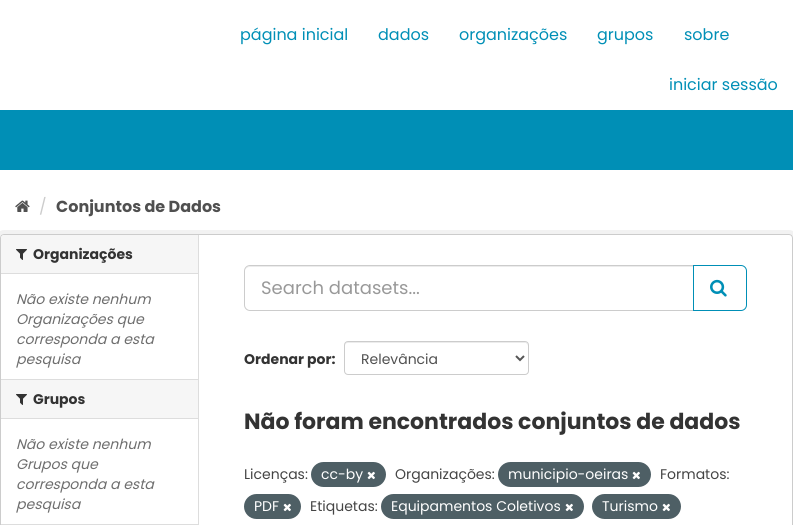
import math
import cairo

surface = cairo.ImageSurface(cairo.FORMAT_RGB24, 793, 525)
cr = cairo.Context(surface)
options = cairo.FontOptions()
options.set_hint_metrics(cairo.HINT_METRICS_OFF)
options.set_hint_style(cairo.HINT_STYLE_NONE)
cr.set_font_options(options)
cr.set_miter_limit(4)


def rgb(code):
    cr.set_source_rgb(*(v / 255 for v in bytes.fromhex(code[-6:])))


def rrect(x, y, w, h, r):
    cr.new_sub_path()
    for i, (u, v) in enumerate([(x + w - r, y + h - r), (x + r, y + h - r), (x + r, y + r), (x + w - r, y + r)]):
        cr.arc(u, v, r, i * math.pi / 2, (i + 1) * math.pi / 2)
    cr.close_path()


def image(path, x, y, w, h):
    cr.save()
    cr.set_source_surface(cairo.ImageSurface.create_from_png(path), x, y)
    cr.rectangle(x, y, w, h)
    cr.fill()
    cr.restore()


rgb("#ffffff")
cr.paint()
rgb("#008fb6")
cr.rectangle(0, 110, 793, 60)
cr.fill()
image("img/1.png", 15, 200, 15, 12)
rrect(-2, 232, 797, 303, 6)
rgb("#f2f2f2")
cr.set_line_width(4)
cr.stroke()
rgb("#ffffff")
rrect(0.5, 234.5, 792, 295, 3.5)
cr.fill_preserve()
rgb("#cccccc")
cr.set_line_width(1)
cr.stroke()
rgb("#f6f6f6")
cr.new_path()
cr.move_to(4, 235)
cr.line_to(198, 235)
cr.line_to(198, 274)
cr.line_to(1, 274)
cr.line_to(1, 238)
cr.curve_to(1, 236.5, 2.5, 235, 4, 235)
cr.close_path()
cr.fill()
rgb("#dddddd")
cr.rectangle(1, 273, 197, 1)
cr.fill()
image("img/2.png", 16, 249, 11, 11)
for x, y, w, h, color in [
    (1, 380, 197, 38, "#f6f6f6"),
    (1, 379, 197, 1, "#dddddd"),
    (1, 418, 197, 1, "#dddddd"),
]:
    rgb(color)
    cr.rectangle(x, y, w, h)
    cr.fill()
image("img/2.png", 16, 394, 11, 11)
cr.rectangle(1, 524, 197, 1)
cr.fill()
cr.rectangle(198, 235, 1, 290)
cr.fill()
rgb("#ececec")
cr.new_path()
cr.move_to(250, 267)
cr.line_to(693, 267)
cr.line_to(693, 266)
cr.line_to(250, 266)
cr.curve_to(247, 266, 245, 269, 245, 272)
cr.curve_to(245, 269, 247, 267, 250, 267)
cr.close_path()
cr.fill()
cr.new_path()
cr.move_to(250, 265.5)
cr.line_to(693.5, 265.5)
cr.line_to(693.5, 310.5)
cr.line_to(250, 310.5)
cr.curve_to(247, 310.5, 244.5, 308, 244.5, 305)
cr.line_to(244.5, 271)
cr.curve_to(244.5, 268, 247, 265.5, 250, 265.5)
cr.close_path()
rgb("#cccccc")
cr.stroke()
rgb("#ffffff")
cr.new_path()
cr.move_to(693.5, 265.5)
cr.line_to(741, 265.5)
cr.curve_to(744, 265.5, 746.5, 268, 746.5, 271)
cr.line_to(746.5, 305)
cr.curve_to(746.5, 308, 744, 310.5, 741, 310.5)
cr.line_to(693.5, 310.5)
cr.close_path()
cr.fill_preserve()
rgb("#008fb6")
cr.stroke()
image("img/3.png", 710, 279, 17, 18)
rgb("#ececec")
cr.new_path()
cr.move_to(348, 343)
cr.line_to(526, 343)
cr.line_to(527, 344)
cr.line_to(528, 346)
cr.curve_to(528, 344, 527, 342, 525, 342)
cr.line_to(347, 342)
cr.curve_to(345, 343, 345, 344, 345, 346)
cr.curve_to(345, 344, 346, 343, 348, 343)
cr.close_path()
cr.fill()
rrect(344.5, 341.5, 184, 33, 3.5)
rgb("#cccccc")
cr.stroke()
cr.new_path()
cr.move_to(516, 356)
cr.line_to(520, 360)
cr.line_to(524, 356)
rgb("#555555")
cr.set_line_width(2)
cr.stroke()
rgb("#4e5f65")
rrect(311, 462, 75, 25, 12.5)
cr.fill()
image("img/4.png", 367, 471, 8, 9)
rrect(498, 462, 153, 25, 12.5)
cr.fill()
image("img/4.png", 632, 471, 8, 9)
rrect(244, 494, 57, 25, 12.5)
cr.fill()
image("img/4.png", 283, 503, 8, 9)
rrect(381, 494, 203, 25, 12.5)
cr.fill()
image("img/4.png", 565, 503, 8, 9)
rrect(592, 494, 89, 25, 12.5)
cr.fill()
image("img/4.png", 662, 503, 8, 9)
cr.select_font_face("Poppins")
cr.set_font_size(16)
rgb("#008fb6")
for x, y, s in [
    (240, 40, "página inicial"),
    (378, 40, "dados"),
    (459, 40, "organizações"),
    (597, 40, "grupos"),
    (684, 40, "sobre"),
    (669, 90, "iniciar sessão"),
]:
    cr.move_to(x, y)
    cr.show_text(s)
rgb("#cccccc")
cr.move_to(39, 212)
cr.show_text("/")
cr.select_font_face("Poppins", cairo.FONT_SLANT_NORMAL, cairo.FONT_WEIGHT_BOLD)
rgb("#505050")
cr.move_to(56, 212)
cr.show_text("Conjuntos de Dados")
cr.set_font_size(14)
rgb("#333333")
cr.move_to(33, 259)
cr.show_text("Organizações")
cr.select_font_face("Poppins", cairo.FONT_SLANT_ITALIC)
rgb("#6e6e6e")
for x, y, s in [
    (16, 304, "Não existe nenhum"),
    (16, 324, "Organizações que"),
    (16, 344, "corresponda a esta"),
    (16, 364, "pesquisa"),
]:
    cr.move_to(x, y)
    cr.show_text(s)
cr.select_font_face("Poppins", cairo.FONT_SLANT_NORMAL, cairo.FONT_WEIGHT_BOLD)
rgb("#333333")
cr.move_to(33, 404)
cr.show_text("Grupos")
cr.select_font_face("Poppins", cairo.FONT_SLANT_ITALIC)
rgb("#6e6e6e")
for x, y, s in [
    (16, 449, "Não existe nenhum"),
    (16, 469, "Grupos que"),
    (16, 489, "corresponda a esta"),
    (16, 509, "pesquisa"),
]:
    cr.move_to(x, y)
    cr.show_text(s)
cr.select_font_face("Poppins")
cr.set_font_size(18)
rgb("#999999")
cr.move_to(261, 294)
cr.show_text("Search datasets...")
cr.select_font_face("Poppins", cairo.FONT_SLANT_NORMAL, cairo.FONT_WEIGHT_BOLD)
cr.set_font_size(14)
rgb("#333333")
cr.move_to(244, 364)
cr.show_text("Ordenar por:")
cr.select_font_face("Poppins")
rgb("#505050")
cr.move_to(361, 364)
cr.show_text("Relevância")
cr.select_font_face("Poppins", cairo.FONT_SLANT_NORMAL, cairo.FONT_WEIGHT_BOLD)
cr.set_font_size(22)
rgb("#333333")
cr.move_to(244, 429)
cr.show_text("Não foram encontrados conjuntos de dados")
cr.select_font_face("Poppins")
cr.set_font_size(14)
rgb("#444444")
cr.move_to(244, 479)
cr.show_text("Licenças:")
rgb("#ffffff")
cr.move_to(321, 479)
cr.show_text("cc-by")
rgb("#444444")
cr.move_to(395, 479)
cr.show_text("Organizações:")
rgb("#ffffff")
cr.move_to(508, 479)
cr.show_text("municipio-oeiras")
rgb("#444444")
cr.move_to(660, 479)
cr.show_text("Formatos:")
rgb("#ffffff")
cr.move_to(254, 511)
cr.show_text("PDF")
rgb("#444444")
cr.move_to(310, 511)
cr.show_text("Etiquetas:")
rgb("#ffffff")
cr.move_to(391, 511)
cr.show_text("Equipamentos Coletivos")
cr.move_to(602, 511)
cr.show_text("Turismo")
surface.write_to_png("page.png")
